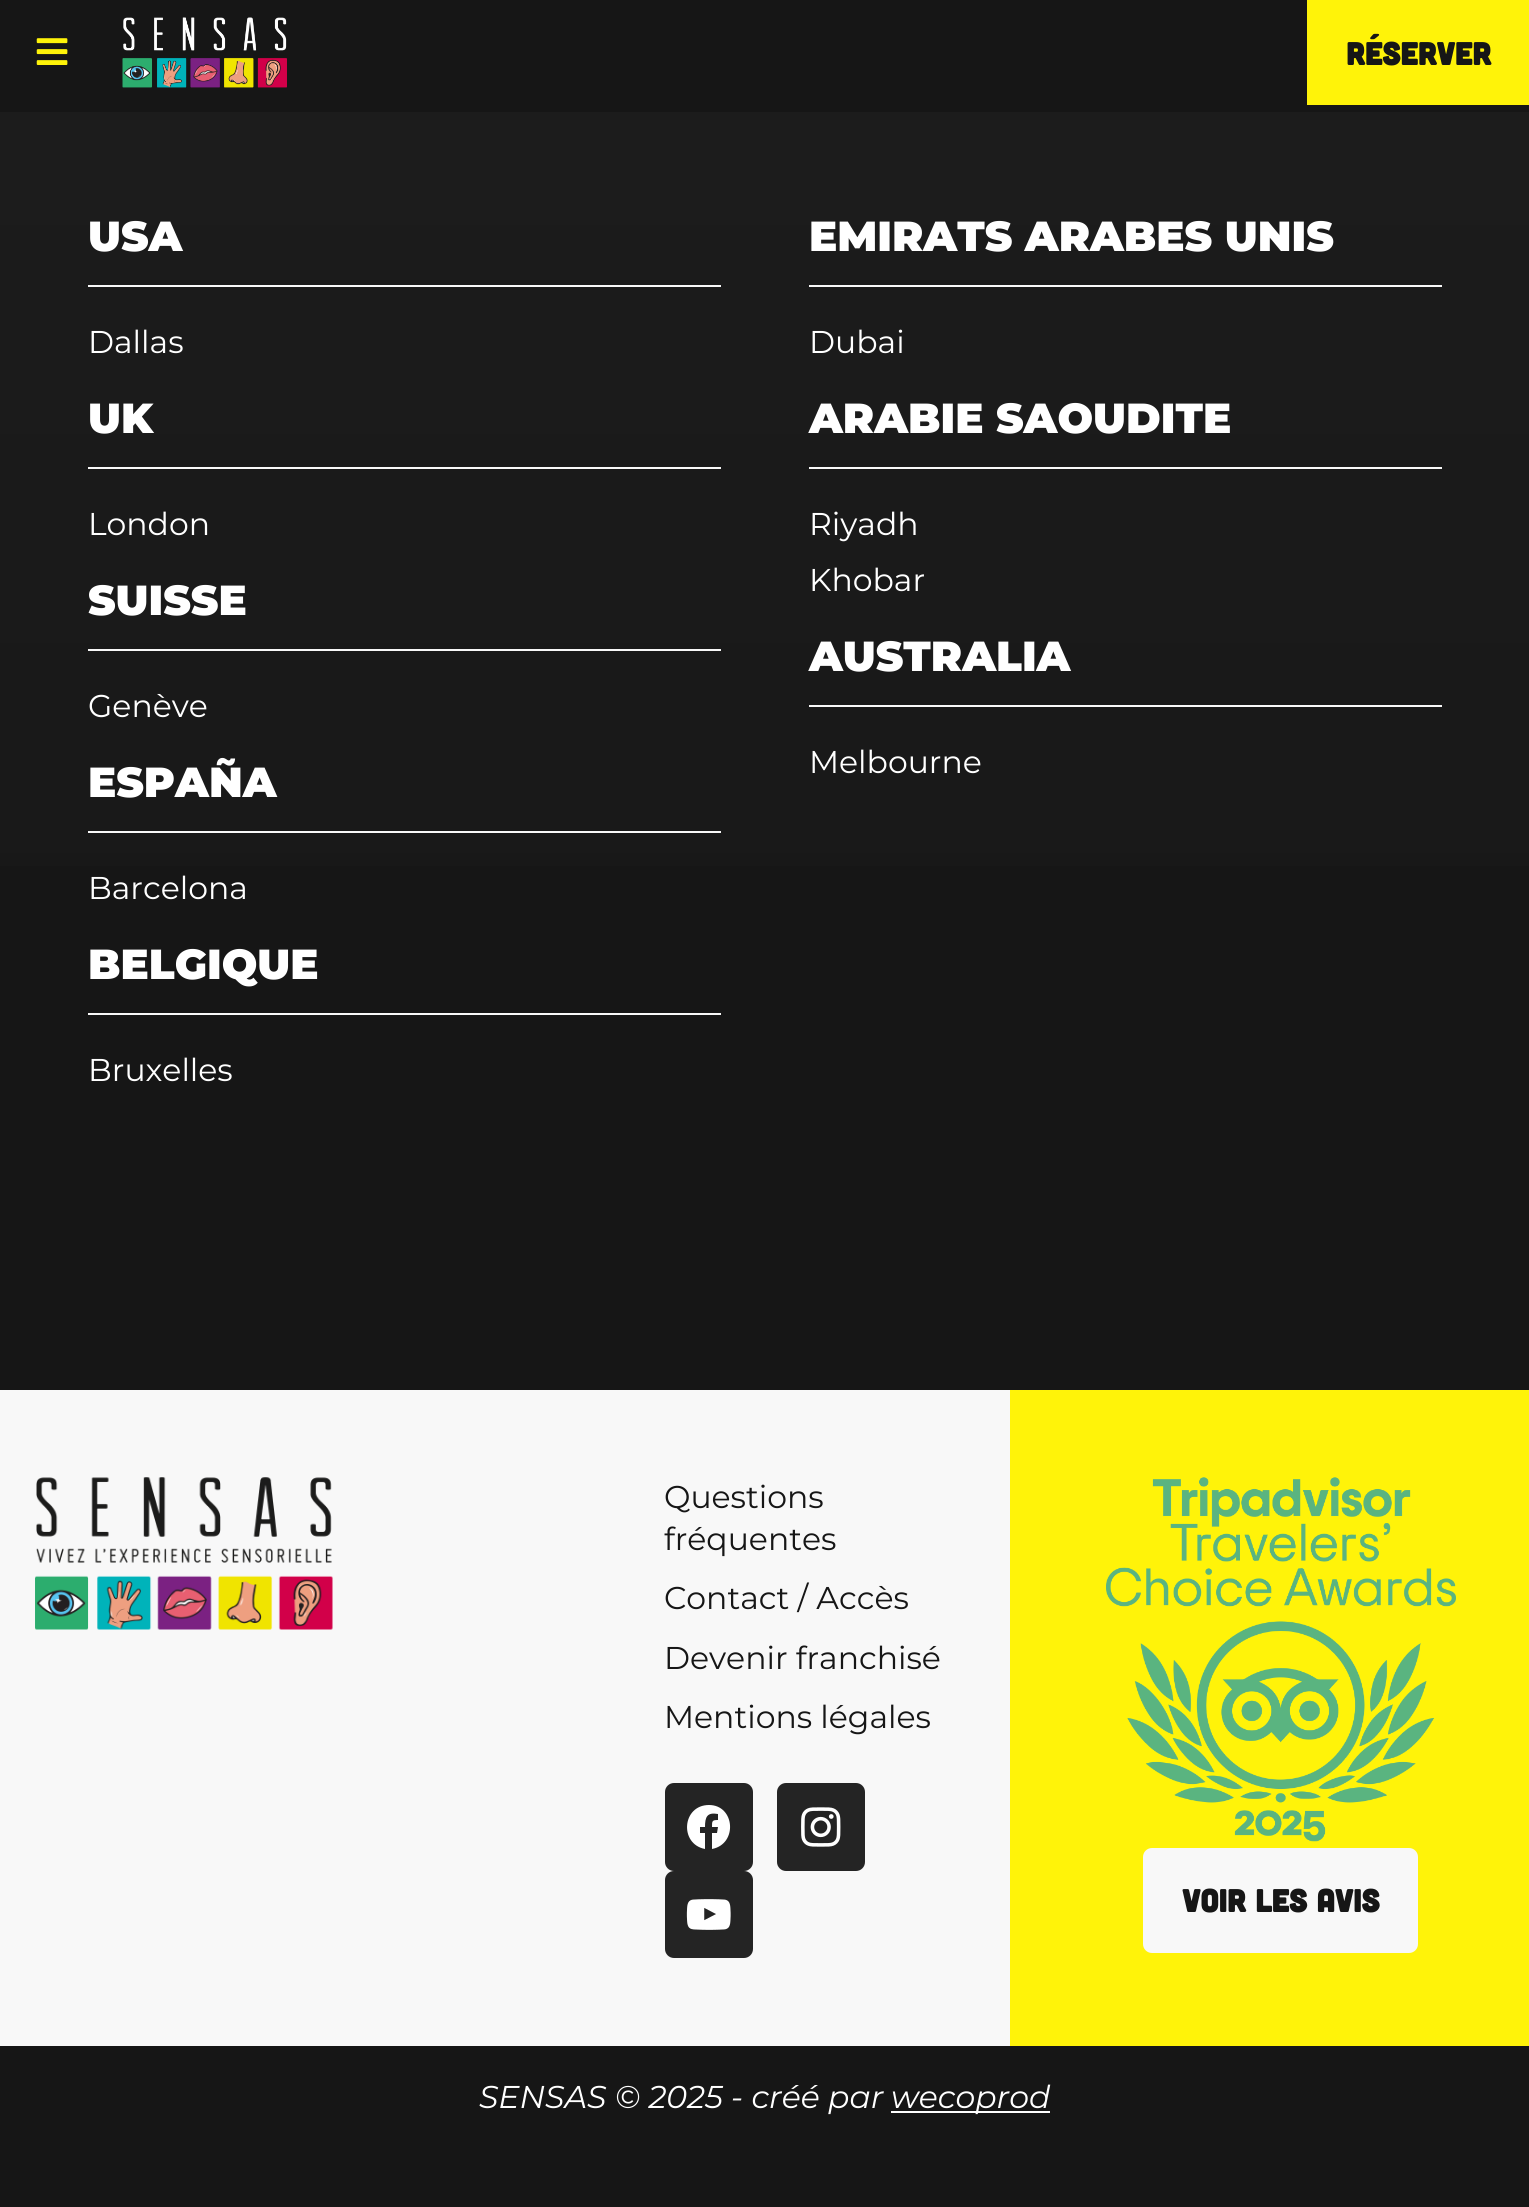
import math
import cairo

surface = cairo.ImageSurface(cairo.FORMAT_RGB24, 1529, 2207)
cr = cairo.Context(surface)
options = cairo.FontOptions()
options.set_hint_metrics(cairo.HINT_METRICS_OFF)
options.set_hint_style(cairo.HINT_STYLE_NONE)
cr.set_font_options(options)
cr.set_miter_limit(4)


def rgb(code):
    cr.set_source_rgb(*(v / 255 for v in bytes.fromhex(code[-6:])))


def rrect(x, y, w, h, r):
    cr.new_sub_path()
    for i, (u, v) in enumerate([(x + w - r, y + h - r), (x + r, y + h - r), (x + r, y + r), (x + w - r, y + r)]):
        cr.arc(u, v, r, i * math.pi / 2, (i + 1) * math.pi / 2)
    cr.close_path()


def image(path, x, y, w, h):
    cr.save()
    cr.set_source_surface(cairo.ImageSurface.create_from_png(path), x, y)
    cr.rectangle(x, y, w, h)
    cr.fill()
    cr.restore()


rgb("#161616")
cr.paint()
image("img/1.png", 36, 38, 32, 27)
image("img/2.png", 122, 17, 165, 71)
rgb("#fff309")
cr.rectangle(1307, 0, 222, 105)
cr.fill()
gradient = cairo.LinearGradient(765, -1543, 765, 1390)
gradient.add_color_stop_rgba(0, 0.141, 0.141, 0.141, 1)
gradient.add_color_stop_rgba(1, 0.086, 0.086, 0.086, 1)
cr.set_source(gradient)
cr.rectangle(0, 112, 1529, 754)
cr.fill()
for x, y, w, h, color in [
    (88, 285, 633, 2, "#f8f8f8"),
    (88, 467, 633, 2, "#f8f8f8"),
    (88, 649, 633, 2, "#f8f8f8"),
    (88, 831, 633, 2, "#f8f8f8"),
    (88, 1013, 633, 2, "#f8f8f8"),
    (809, 285, 633, 2, "#f8f8f8"),
    (809, 467, 633, 2, "#f8f8f8"),
    (809, 705, 633, 2, "#f8f8f8"),
    (0, 1390, 1010, 656, "#f8f8f8"),
    (1010, 1390, 519, 656, "#fff309"),
]:
    rgb(color)
    cr.rectangle(x, y, w, h)
    cr.fill()
image("img/3.png", 35, 1477, 298, 153)
rgb("#242424")
rrect(665, 1783, 88, 88, 9)
cr.fill()
rgb("#ffffff")
cr.new_path()
cr.move_to(709, 1805)
cr.curve_to(682, 1805, 679, 1844, 705, 1849)
cr.line_to(705, 1833)
cr.line_to(700, 1833)
cr.line_to(700, 1827)
cr.line_to(705, 1827)
cr.curve_to(705, 1817, 707, 1812, 718, 1814)
cr.line_to(718, 1820)
cr.curve_to(712, 1820, 712, 1821, 712, 1827)
cr.line_to(718, 1827)
cr.line_to(717, 1833)
cr.line_to(712, 1833)
cr.line_to(712, 1849)
cr.curve_to(738, 1844, 735, 1805, 709, 1805)
cr.close_path()
cr.fill()
rgb("#242424")
rrect(777, 1783, 88, 88, 9)
cr.fill()
image("img/4.png", 801, 1807, 40, 40)
rrect(665, 1871, 88, 87, 9)
cr.fill()
image("img/5.png", 686, 1899, 45, 31)
image("img/6.png", 1106, 1477, 350, 365)
rgb("#f8f8f8")
rrect(1145, 1850, 271, 101, 7)
cr.fill_preserve()
cr.set_line_width(4)
cr.stroke()
rgb("#ffffff")
cr.rectangle(891, 2111, 159, 2)
cr.fill()
cr.select_font_face("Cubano", cairo.FONT_SLANT_NORMAL, cairo.FONT_WEIGHT_BOLD)
cr.set_font_size(31.5)
rgb("#161616")
cr.move_to(1346, 65)
cr.show_text("RÉSERVER")
cr.select_font_face("Montserrat Black")
cr.set_font_size(42)
rgb("#ffffff")
cr.move_to(88, 251)
cr.show_text("USA")
cr.select_font_face("Montserrat")
cr.set_font_size(31.5)
cr.move_to(88, 353)
cr.show_text("Dallas")
cr.select_font_face("Montserrat Black")
cr.set_font_size(42)
cr.move_to(88, 433)
cr.show_text("UK")
cr.select_font_face("Montserrat")
cr.set_font_size(31.5)
cr.move_to(88, 535)
cr.show_text("London")
cr.select_font_face("Montserrat Black")
cr.set_font_size(42)
cr.move_to(88, 615)
cr.show_text("SUISSE")
cr.select_font_face("Montserrat")
cr.set_font_size(31.5)
cr.move_to(88, 717)
cr.show_text("Genève")
cr.select_font_face("Montserrat Black")
cr.set_font_size(42)
cr.move_to(88, 797)
cr.show_text("ESPAÑA")
cr.select_font_face("Montserrat")
cr.set_font_size(31.5)
cr.move_to(88, 899)
cr.show_text("Barcelona")
cr.select_font_face("Montserrat Black")
cr.set_font_size(42)
cr.move_to(88, 979)
cr.show_text("BELGIQUE")
cr.select_font_face("Montserrat")
cr.set_font_size(31.5)
cr.move_to(88, 1081)
cr.show_text("Bruxelles")
cr.select_font_face("Montserrat Black")
cr.set_font_size(42)
cr.move_to(809, 251)
cr.show_text("EMIRATS ARABES UNIS")
cr.select_font_face("Montserrat")
cr.set_font_size(31.5)
cr.move_to(809, 353)
cr.show_text("Dubai")
cr.select_font_face("Montserrat Black")
cr.set_font_size(42)
cr.move_to(809, 433)
cr.show_text("ARABIE SAOUDITE")
cr.select_font_face("Montserrat")
cr.set_font_size(31.5)
cr.move_to(809, 535)
cr.show_text("Riyadh")
cr.move_to(809, 591)
cr.show_text("Khobar")
cr.select_font_face("Montserrat Black")
cr.set_font_size(42)
cr.move_to(809, 671)
cr.show_text("AUSTRALIA")
cr.select_font_face("Montserrat")
cr.set_font_size(31.5)
cr.move_to(809, 773)
cr.show_text("Melbourne")
rgb("#161616")
for x, y, s in [
    (664, 1508, "Questions"),
    (664, 1550, "fréquentes"),
    (664, 1609, "Contact / Accès"),
    (664, 1669, "Devenir franchisé"),
    (664, 1728, "Mentions légales"),
]:
    cr.move_to(x, y)
    cr.show_text(s)
cr.select_font_face("Cubano", cairo.FONT_SLANT_NORMAL, cairo.FONT_WEIGHT_BOLD)
cr.move_to(1182, 1912)
cr.show_text("VOIR LES AVIS")
cr.select_font_face("Montserrat", cairo.FONT_SLANT_ITALIC)
rgb("#ffffff")
cr.move_to(479, 2108)
cr.show_text("SENSAS © 2025 - créé par")
cr.move_to(891, 2108)
cr.show_text("wecoprod")
surface.write_to_png("page.png")
